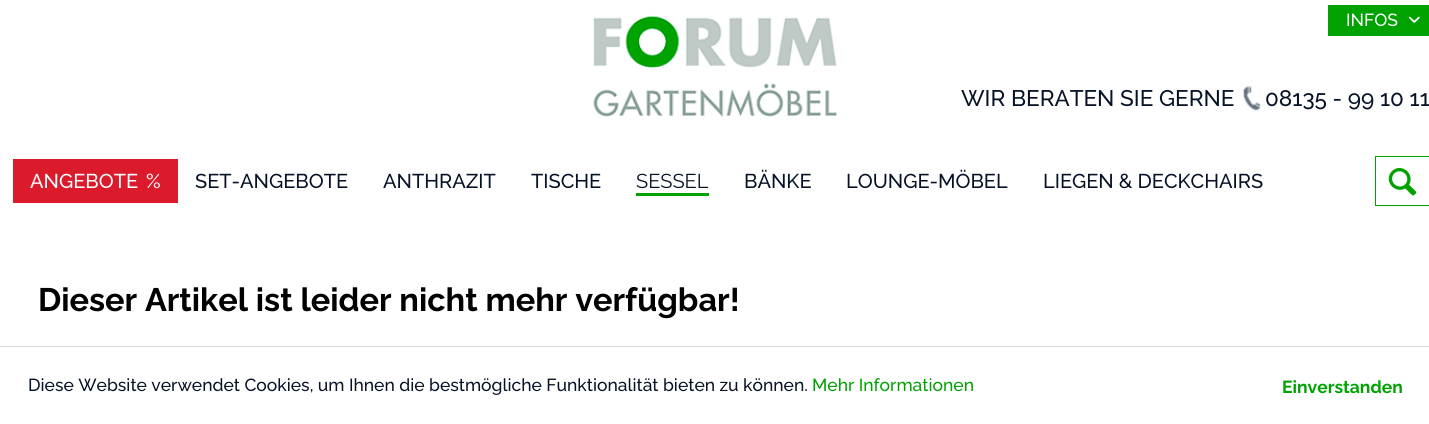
import math
import cairo

surface = cairo.ImageSurface(cairo.FORMAT_RGB24, 1429, 424)
cr = cairo.Context(surface)
options = cairo.FontOptions()
options.set_hint_metrics(cairo.HINT_METRICS_OFF)
options.set_hint_style(cairo.HINT_STYLE_NONE)
cr.set_font_options(options)
cr.set_miter_limit(4)


def rgb(code):
    cr.set_source_rgb(*(v / 255 for v in bytes.fromhex(code[-6:])))


def image(path, x, y, w, h):
    cr.save()
    cr.set_source_surface(cairo.ImageSurface.create_from_png(path), x, y)
    cr.rectangle(x, y, w, h)
    cr.fill()
    cr.restore()


rgb("#ffffff")
cr.paint()
image("img/1.png", 593, 15, 244, 102)
rgb("#00a201")
cr.rectangle(1328, 5, 101, 31)
cr.fill()
image("img/2.png", 1408, 16, 12, 7)
image("img/3.png", 1243, 86, 18, 25)
cr.rectangle(1375.5, 156.5, 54, 49)
cr.set_line_width(1)
cr.stroke()
image("img/4.png", 1388, 168, 29, 28)
for x, y, w, h, color in [
    (13, 159, 165, 44, "#db1a2b"),
    (636, 193, 73, 3, "#00a201"),
    (0, 346, 1429, 1, "#dadae5"),
]:
    rgb(color)
    cr.rectangle(x, y, w, h)
    cr.fill()
cr.select_font_face("Raleway Thin")
cr.set_font_size(17.5)
rgb("#ffffff")
cr.move_to(1346, 26)
cr.show_text("INFOS")
cr.set_font_size(22.5)
rgb("#071227")
cr.move_to(961, 106)
cr.show_text("WIR BERATEN SIE GERNE")
cr.move_to(1265, 106)
cr.show_text("08135 - 99 10 11")
cr.set_font_size(20)
rgb("#ffffff")
cr.move_to(30, 188)
cr.show_text("ANGEBOTE")
cr.move_to(146, 188)
cr.show_text("%")
rgb("#071227")
for x, y, s in [
    (195, 188, "SET-ANGEBOTE"),
    (383, 188, "ANTHRAZIT"),
    (531, 188, "TISCHE"),
]:
    cr.move_to(x, y)
    cr.show_text(s)
cr.select_font_face("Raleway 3 Thin")
cr.move_to(636, 188)
cr.show_text("SESSEL")
cr.select_font_face("Raleway Thin")
for x, y, s in [
    (744, 188, "BÄNKE"),
    (846, 188, "LOUNGE-MÖBEL"),
    (1043, 188, "LIEGEN & DECKCHAIRS"),
]:
    cr.move_to(x, y)
    cr.show_text(s)
cr.select_font_face("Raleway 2 Thin")
cr.set_font_size(32.5)
rgb("#000000")
cr.move_to(38, 311)
cr.show_text("Dieser Artikel ist leider nicht mehr verfügbar!")
cr.select_font_face("Raleway Thin")
cr.set_font_size(17.5)
rgb("#071227")
cr.move_to(28, 391)
cr.show_text("Diese Website verwendet Cookies, um Ihnen die bestmögliche Funktionalität bieten zu können.")
rgb("#00a201")
cr.move_to(812, 391)
cr.show_text("Mehr Informationen")
cr.select_font_face("Raleway 2 Thin")
cr.move_to(1282, 393)
cr.show_text("Einverstanden")
surface.write_to_png("page.png")
